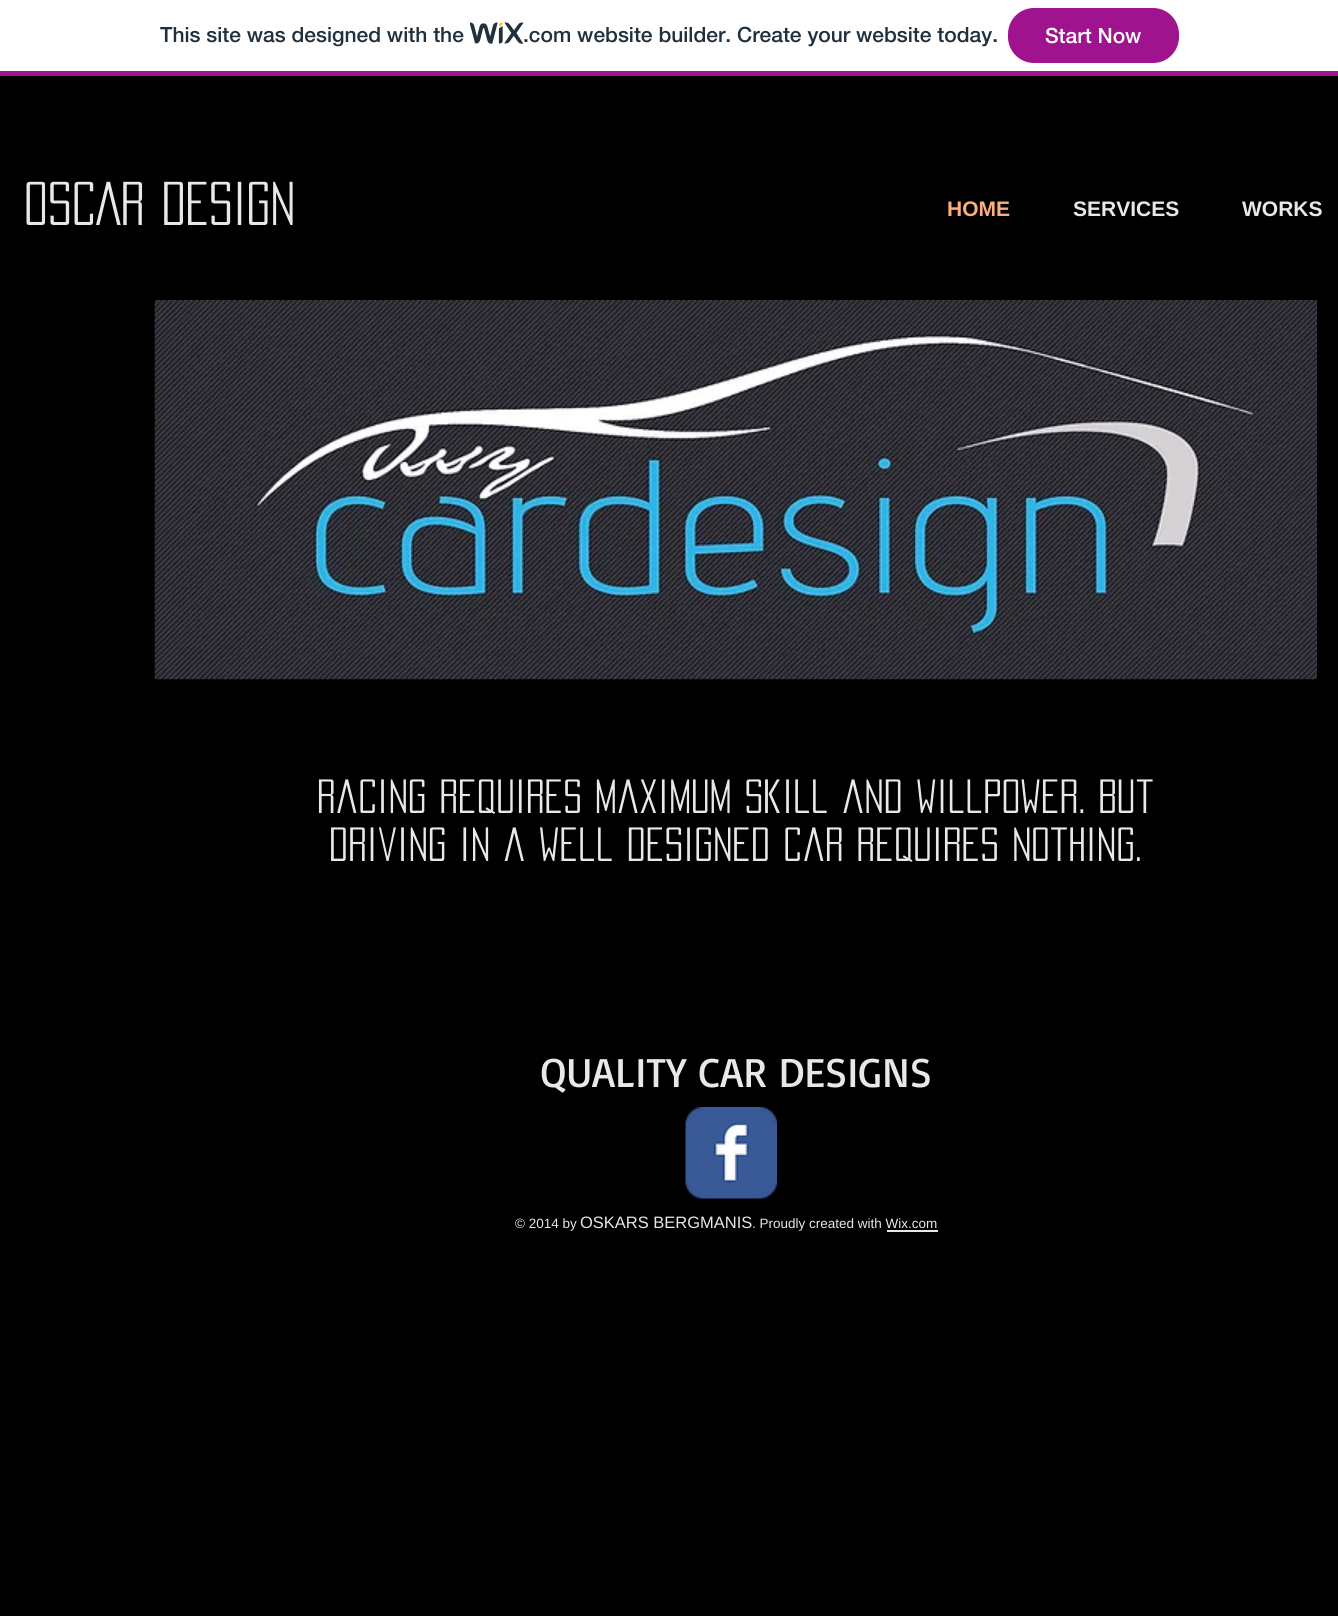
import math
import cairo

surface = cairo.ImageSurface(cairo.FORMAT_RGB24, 1338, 1616)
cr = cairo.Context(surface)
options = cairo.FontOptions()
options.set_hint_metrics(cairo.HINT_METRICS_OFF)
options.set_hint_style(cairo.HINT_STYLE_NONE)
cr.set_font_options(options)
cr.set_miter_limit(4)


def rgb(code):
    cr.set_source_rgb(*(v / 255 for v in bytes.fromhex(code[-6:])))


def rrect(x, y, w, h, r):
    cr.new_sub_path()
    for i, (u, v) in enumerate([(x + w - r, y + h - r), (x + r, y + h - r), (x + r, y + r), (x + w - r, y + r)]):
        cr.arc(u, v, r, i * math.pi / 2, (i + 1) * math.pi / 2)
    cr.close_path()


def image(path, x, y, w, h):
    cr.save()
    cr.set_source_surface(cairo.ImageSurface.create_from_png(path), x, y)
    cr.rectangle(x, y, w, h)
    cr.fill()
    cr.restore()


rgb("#ffffff")
cr.paint()
rgb("#a0138e")
cr.rectangle(0, 71, 1338, 5)
cr.fill()
image("img/1.png", 470, 22, 54, 22)
rrect(1009, 9, 169, 53, 25)
cr.fill_preserve()
cr.stroke()
rgb("#000000")
cr.rectangle(0, 76, 1338, 1540)
cr.fill()
image("img/2.png", 154, 300, 1163, 380)
image("img/3.png", 685, 1107, 92, 92)
rgb("#e8e8e8")
cr.rectangle(887, 1230, 51, 2)
cr.fill()
cr.select_font_face("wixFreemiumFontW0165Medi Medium")
cr.set_font_size(21)
rgb("#20303c")
cr.move_to(160, 42)
cr.show_text("This site was designed with the")
cr.move_to(523, 42)
cr.show_text(".com website builder. Create your website today.")
rgb("#ffffff")
cr.move_to(1045, 43)
cr.show_text("Start Now")
cr.select_font_face("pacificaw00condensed")
cr.set_font_size(54)
rgb("#e8e8e8")
cr.move_to(24, 225)
cr.show_text("OSCAR DESIGN")
cr.select_font_face("Liberation Sans", cairo.FONT_SLANT_NORMAL, cairo.FONT_WEIGHT_BOLD)
cr.set_font_size(21)
rgb("#fdaf7e")
cr.move_to(947, 216)
cr.show_text("HOME")
rgb("#e8e8e8")
cr.move_to(1073, 216)
cr.show_text("SERVICES")
cr.move_to(1242, 216)
cr.show_text("WORKS")
cr.select_font_face("pacificaw00condensed")
cr.set_font_size(42)
cr.move_to(317, 813)
cr.show_text("Racing requires maximum skill and willpower. But")
cr.move_to(329, 861)
cr.show_text("driving in a well designed car requires nothing.")
cr.select_font_face("Basic")
cr.move_to(540, 1087)
cr.show_text("QUALITY CAR DESIGNS")
cr.select_font_face("Liberation Sans")
cr.set_font_size(13.5)
cr.move_to(515, 1228)
cr.show_text("© 2014 by")
cr.set_font_size(16.5)
cr.move_to(580, 1228)
cr.show_text("OSKARS BERGMANIS")
cr.set_font_size(13.5)
cr.move_to(752, 1228)
cr.show_text(". Proudly created with Wix.com")
surface.write_to_png("page.png")
